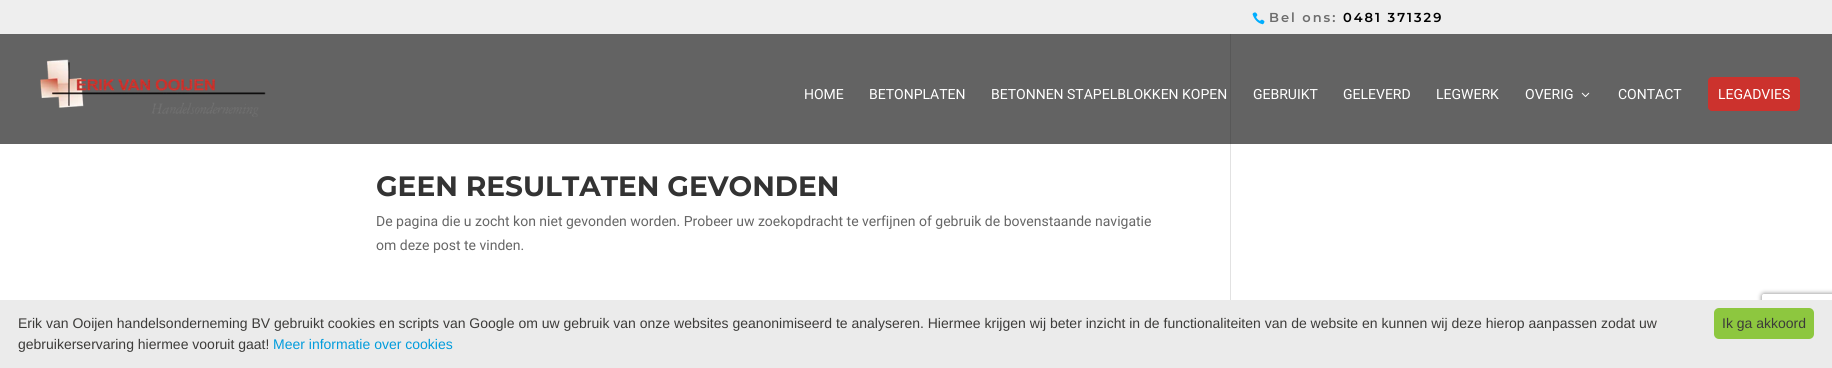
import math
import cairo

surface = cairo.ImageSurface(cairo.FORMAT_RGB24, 1832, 368)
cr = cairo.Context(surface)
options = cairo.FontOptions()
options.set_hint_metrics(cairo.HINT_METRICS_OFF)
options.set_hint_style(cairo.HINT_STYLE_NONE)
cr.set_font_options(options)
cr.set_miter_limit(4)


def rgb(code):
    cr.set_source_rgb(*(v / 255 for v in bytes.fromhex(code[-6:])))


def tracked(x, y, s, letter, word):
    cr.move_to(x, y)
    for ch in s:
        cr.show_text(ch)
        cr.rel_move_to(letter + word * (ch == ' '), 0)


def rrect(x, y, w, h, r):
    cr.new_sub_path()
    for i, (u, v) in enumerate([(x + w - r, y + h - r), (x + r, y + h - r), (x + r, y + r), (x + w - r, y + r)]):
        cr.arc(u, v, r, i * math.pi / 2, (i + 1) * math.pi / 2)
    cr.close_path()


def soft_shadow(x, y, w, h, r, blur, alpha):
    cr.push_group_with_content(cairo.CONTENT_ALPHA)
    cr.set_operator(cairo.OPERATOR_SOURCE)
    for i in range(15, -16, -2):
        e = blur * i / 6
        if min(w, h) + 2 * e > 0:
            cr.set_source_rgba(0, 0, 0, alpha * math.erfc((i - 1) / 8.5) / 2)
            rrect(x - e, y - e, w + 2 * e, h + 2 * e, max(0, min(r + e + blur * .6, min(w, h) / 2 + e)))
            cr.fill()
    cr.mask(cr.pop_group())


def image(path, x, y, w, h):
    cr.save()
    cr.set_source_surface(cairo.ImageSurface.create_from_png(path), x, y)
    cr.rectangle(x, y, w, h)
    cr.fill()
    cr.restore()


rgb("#ffffff")
cr.paint()
rgb("#636363")
cr.rectangle(0, 34, 1832, 110)
cr.fill()
rgb("#eeeeee")
cr.rectangle(0, 0, 1832, 34)
cr.fill()
image("img/1.png", 1252, 12, 13, 13)
image("img/2.png", 40, 59, 226, 58)
image("img/3.png", 1581, 92, 9, 5)
rgb("#cc322d")
rrect(1708, 77, 92, 34, 4)
cr.fill()
rgb("#e2e2e2")
cr.rectangle(1230, 144, 1, 156)
cr.fill()
rgb("#585858")
cr.rectangle(1230, 34, 1, 110)
cr.fill()
cr.save()
cr.set_fill_rule(cairo.FILL_RULE_EVEN_ODD)
cr.new_path()
cr.move_to(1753, 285)
cr.line_to(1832, 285)
cr.line_to(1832, 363)
cr.line_to(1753, 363)
cr.close_path()
cr.move_to(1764, 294)
cr.line_to(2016, 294)
cr.curve_to(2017, 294, 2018, 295, 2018, 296)
cr.line_to(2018, 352)
cr.curve_to(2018, 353, 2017, 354, 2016, 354)
cr.line_to(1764, 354)
cr.curve_to(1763, 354, 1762, 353, 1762, 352)
cr.line_to(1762, 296)
cr.curve_to(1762, 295, 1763, 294, 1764, 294)
cr.close_path()
cr.clip()
rgb("#808080")
soft_shadow(1762, 294, 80, 60, 2, 2.5, 1)
cr.restore()
rgb("#ebebeb")
cr.rectangle(0, 300, 1832, 68)
cr.fill()
rgb("#8dc73f")
rrect(1714, 308, 100, 31, 5)
cr.fill()
cr.select_font_face("Montserrat SemiBold")
cr.set_font_size(13)
rgb("#6d6d6d")
tracked(1269, 22, "Bel ons:", 2, 0)
rgb("#000000")
tracked(1343, 22, "0481 371329", 2, 0)
cr.select_font_face("Roboto")
cr.set_font_size(14)
rgb("#ffffff")
for x, y, s in [
    (804, 99, "HOME"),
    (869, 99, "BETONPLATEN"),
    (991, 99, "BETONNEN STAPELBLOKKEN KOPEN"),
    (1253, 99, "GEBRUIKT"),
    (1343, 99, "GELEVERD"),
    (1436, 99, "LEGWERK"),
    (1525, 99, "OVERIG"),
    (1618, 99, "CONTACT"),
    (1718, 99, "LEGADVIES"),
]:
    cr.move_to(x, y)
    cr.show_text(s)
cr.select_font_face("Montserrat", cairo.FONT_SLANT_NORMAL, cairo.FONT_WEIGHT_BOLD)
cr.set_font_size(28)
rgb("#333333")
cr.move_to(376, 196)
cr.show_text("GEEN RESULTATEN GEVONDEN")
cr.select_font_face("Roboto")
cr.set_font_size(14)
rgb("#666666")
cr.move_to(376, 226)
cr.show_text("De pagina die u zocht kon niet gevonden worden. Probeer uw zoekopdracht te verfijnen of gebruik de bovenstaande navigatie")
cr.move_to(376, 250)
cr.show_text("om deze post te vinden.")
cr.select_font_face("Liberation Sans")
rgb("#3c3b39")
cr.move_to(18, 328)
cr.show_text("Erik van Ooijen handelsonderneming BV gebruikt cookies en scripts van Google om uw gebruik van onze websites geanonimiseerd te analyseren. Hiermee krijgen wij beter inzicht in de functionaliteiten van de website en kunnen wij deze hierop aanpassen zodat uw")
cr.move_to(18, 349)
cr.show_text("gebruikerservaring hiermee vooruit gaat!")
rgb("#019cdc")
cr.move_to(273, 349)
cr.show_text("Meer informatie over cookies")
rgb("#3c3b39")
cr.move_to(1722, 328)
cr.show_text("Ik ga akkoord")
surface.write_to_png("page.png")
